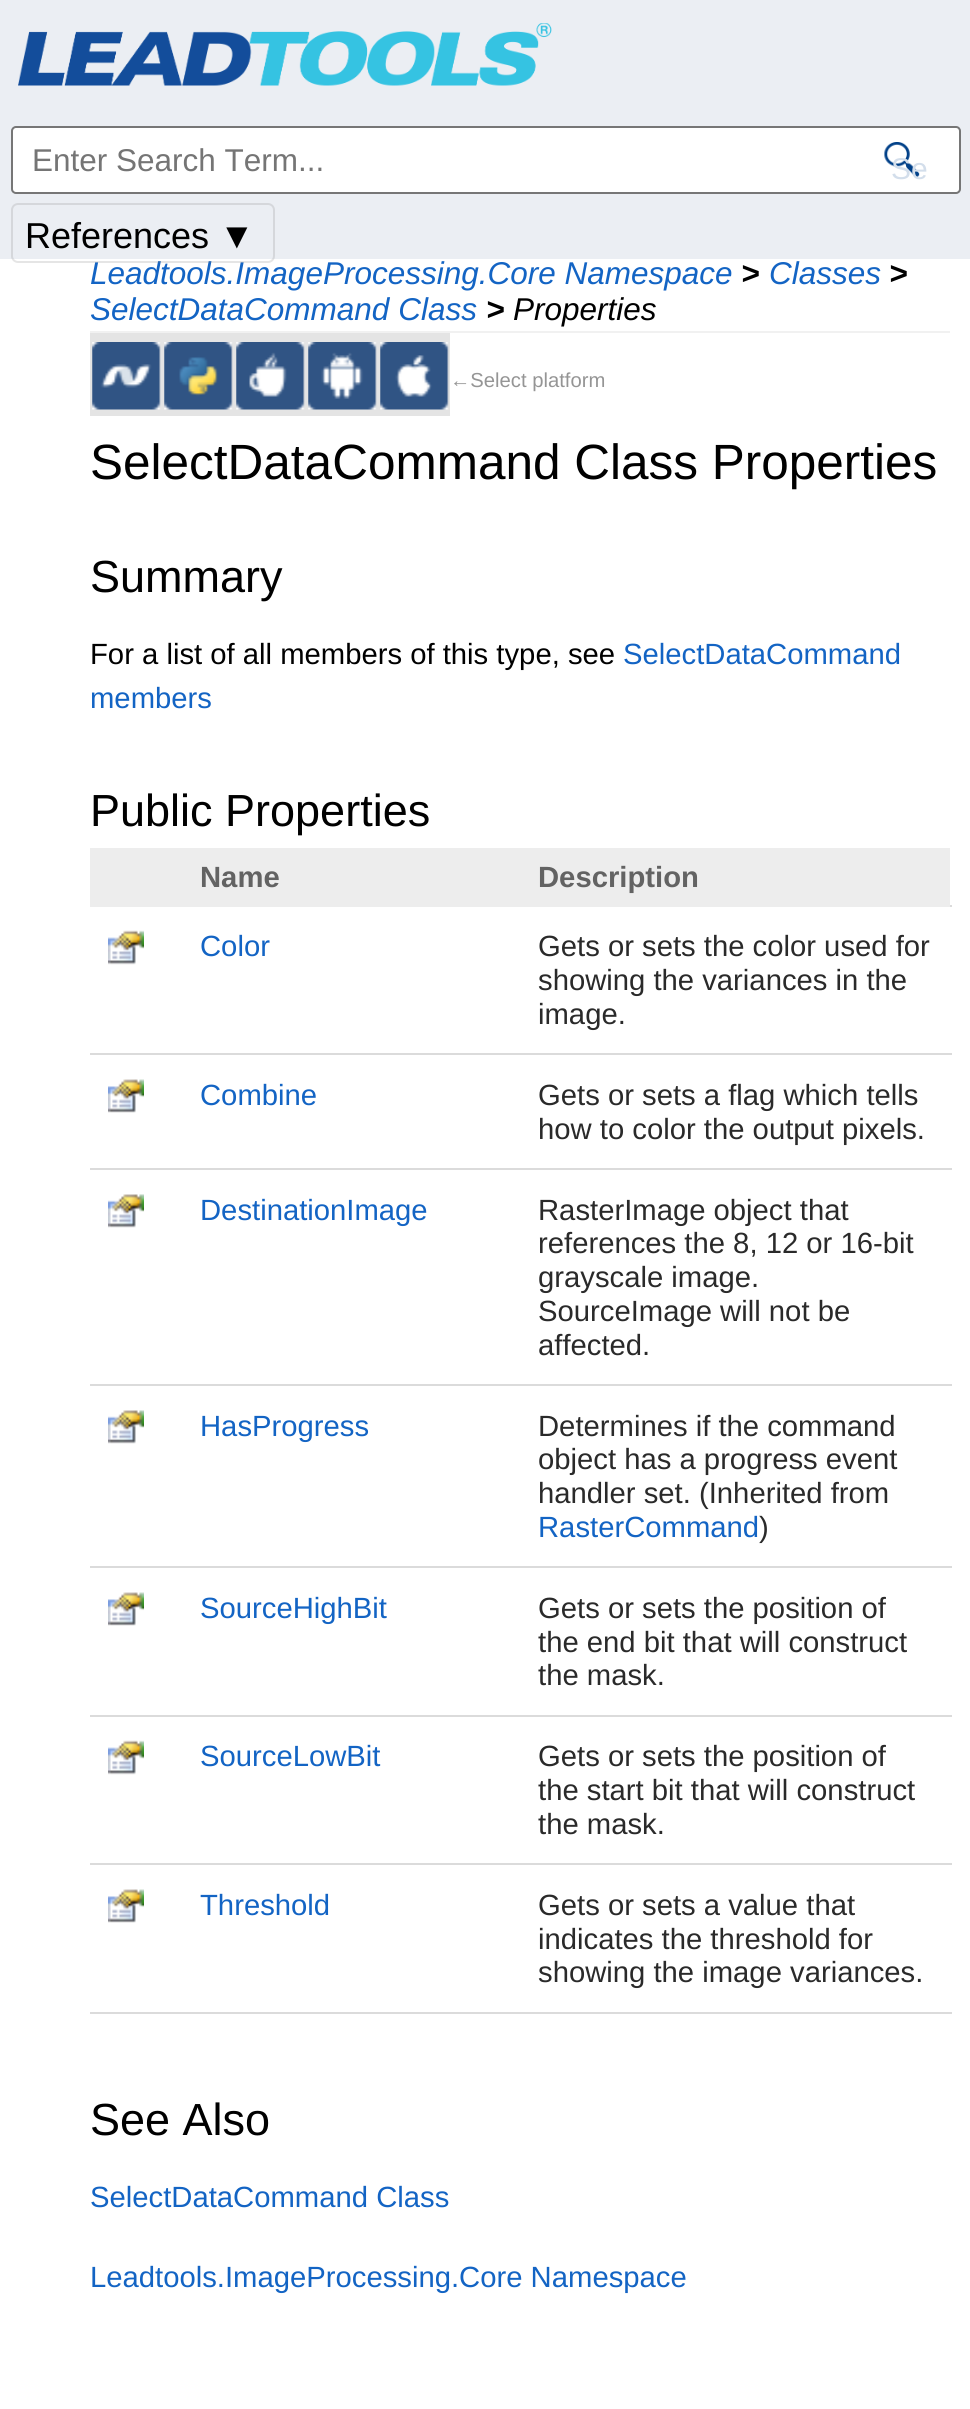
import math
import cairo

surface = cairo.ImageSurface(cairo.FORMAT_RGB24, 970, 2409)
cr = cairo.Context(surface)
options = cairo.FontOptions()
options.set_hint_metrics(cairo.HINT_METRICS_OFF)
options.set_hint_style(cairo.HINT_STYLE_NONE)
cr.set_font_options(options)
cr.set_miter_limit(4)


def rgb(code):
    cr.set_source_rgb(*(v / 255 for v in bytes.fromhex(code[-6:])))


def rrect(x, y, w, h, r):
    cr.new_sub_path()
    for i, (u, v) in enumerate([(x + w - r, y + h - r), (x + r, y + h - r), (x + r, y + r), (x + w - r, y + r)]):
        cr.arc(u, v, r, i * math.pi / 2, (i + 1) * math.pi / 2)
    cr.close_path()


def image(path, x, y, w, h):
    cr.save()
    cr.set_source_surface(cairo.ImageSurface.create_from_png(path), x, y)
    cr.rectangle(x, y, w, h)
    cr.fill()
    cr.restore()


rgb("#ffffff")
cr.paint()
rgb("#ebeef3")
cr.rectangle(0, 0, 970, 259)
cr.fill()
image("img/1.png", 18, 23, 534, 63)
rgb("#ffffff")
rrect(12, 127, 948, 66, 4)
cr.fill_preserve()
rgb("#767676")
cr.stroke()
image("img/2.png", 884, 142, 36, 35)
rgb("#f1f1f1")
cr.rectangle(90, 331, 860, 2)
cr.fill()
rgb("#e4e4e4")
cr.rectangle(90, 333, 360, 83)
cr.fill()
image("img/3.png", 92, 342, 69, 68)
image("img/4.png", 164, 342, 69, 68)
image("img/5.png", 236, 342, 69, 68)
image("img/6.png", 308, 342, 69, 68)
image("img/7.png", 380, 342, 69, 68)
rgb("#ededed")
cr.rectangle(90, 848, 860, 59)
cr.fill()
rgb("#dbdbdb")
cr.rectangle(950, 905, 2, 2)
cr.fill()
image("img/8.png", 108, 930, 36, 35)
cr.rectangle(90, 1053, 862, 2)
cr.fill()
image("img/9.png", 108, 1079, 36, 34)
cr.rectangle(90, 1168, 862, 2)
cr.fill()
image("img/10.png", 108, 1194, 36, 34)
cr.rectangle(90, 1384, 862, 2)
cr.fill()
image("img/11.png", 108, 1410, 36, 34)
cr.rectangle(90, 1566, 862, 2)
cr.fill()
image("img/9.png", 108, 1592, 36, 34)
cr.rectangle(90, 1715, 862, 2)
cr.fill()
image("img/8.png", 108, 1740, 36, 35)
cr.rectangle(90, 1863, 862, 2)
cr.fill()
image("img/9.png", 108, 1889, 36, 34)
cr.rectangle(90, 2012, 862, 2)
cr.fill()
cr.select_font_face("Liberation Sans")
cr.set_font_size(31.5)
rgb("#757575")
cr.move_to(32, 171)
cr.show_text("Enter Search Term...")
cr.set_font_size(30)
rgb("#d3deeb")
cr.move_to(891, 179)
cr.show_text("Se")
cr.select_font_face("Liberation Sans", cairo.FONT_SLANT_ITALIC)
cr.set_font_size(31.5)
rgb("#1364c4")
cr.move_to(90, 284)
cr.show_text("Leadtools.ImageProcessing.Core Namespace")
rrect(12, 204, 262, 58, 6)
cr.set_source_rgba(0.502, 0.502, 0.502, 0.2)
cr.stroke()
cr.select_font_face("Liberation Sans")
cr.set_font_size(36)
rgb("#000000")
cr.move_to(25, 248)
cr.show_text("References ▼")
cr.select_font_face("Liberation Sans", cairo.FONT_SLANT_ITALIC, cairo.FONT_WEIGHT_BOLD)
cr.set_font_size(31.5)
cr.move_to(741, 284)
cr.show_text(">")
cr.select_font_face("Liberation Sans", cairo.FONT_SLANT_ITALIC)
rgb("#1364c4")
cr.move_to(769, 284)
cr.show_text("Classes")
cr.select_font_face("Liberation Sans", cairo.FONT_SLANT_ITALIC, cairo.FONT_WEIGHT_BOLD)
rgb("#000000")
cr.move_to(889, 284)
cr.show_text(">")
cr.select_font_face("Liberation Sans", cairo.FONT_SLANT_ITALIC)
rgb("#1364c4")
cr.move_to(90, 320)
cr.show_text("SelectDataCommand Class")
cr.select_font_face("Liberation Sans", cairo.FONT_SLANT_ITALIC, cairo.FONT_WEIGHT_BOLD)
rgb("#000000")
cr.move_to(486, 320)
cr.show_text(">")
cr.select_font_face("Liberation Sans", cairo.FONT_SLANT_ITALIC)
cr.move_to(513, 320)
cr.show_text("Properties")
cr.select_font_face("Liberation Sans")
cr.set_font_size(20.25)
rgb("#959595")
cr.move_to(450, 387)
cr.show_text("←Select platform")
cr.set_font_size(49.5)
rgb("#000000")
cr.move_to(90, 479)
cr.show_text("SelectDataCommand Class Properties")
cr.set_font_size(45)
cr.move_to(90, 592)
cr.show_text("Summary")
cr.set_font_size(29.25)
cr.move_to(90, 664)
cr.show_text("For a list of all members of this type, see")
rgb("#1364c4")
cr.move_to(623, 664)
cr.show_text("SelectDataCommand")
cr.move_to(90, 708)
cr.show_text("members")
cr.set_font_size(45)
rgb("#000000")
cr.move_to(90, 826)
cr.show_text("Public Properties")
cr.select_font_face("Liberation Sans", cairo.FONT_SLANT_NORMAL, cairo.FONT_WEIGHT_BOLD)
cr.set_font_size(29.25)
rgb("#636363")
cr.move_to(200, 887)
cr.show_text("Name")
cr.move_to(538, 887)
cr.show_text("Description")
cr.select_font_face("Liberation Sans")
rgb("#1364c4")
cr.move_to(200, 956)
cr.show_text("Color")
rgb("#2a2a2a")
for x, y, s in [
    (538, 956, "Gets or sets the color used for"),
    (538, 990, "showing the variances in the"),
    (538, 1024, "image."),
]:
    cr.move_to(x, y)
    cr.show_text(s)
rgb("#1364c4")
cr.move_to(200, 1105)
cr.show_text("Combine")
rgb("#2a2a2a")
cr.move_to(538, 1105)
cr.show_text("Gets or sets a flag which tells")
cr.move_to(538, 1139)
cr.show_text("how to color the output pixels.")
rgb("#1364c4")
cr.move_to(200, 1220)
cr.show_text("DestinationImage")
rgb("#2a2a2a")
for x, y, s in [
    (538, 1220, "RasterImage object that"),
    (538, 1253, "references the 8, 12 or 16-bit"),
    (538, 1287, "grayscale image."),
    (538, 1321, "SourceImage will not be"),
    (538, 1355, "affected."),
]:
    cr.move_to(x, y)
    cr.show_text(s)
rgb("#1364c4")
cr.move_to(200, 1436)
cr.show_text("HasProgress")
rgb("#2a2a2a")
for x, y, s in [
    (538, 1436, "Determines if the command"),
    (538, 1469, "object has a progress event"),
    (538, 1503, "handler set. (Inherited from"),
]:
    cr.move_to(x, y)
    cr.show_text(s)
rgb("#1364c4")
cr.move_to(538, 1537)
cr.show_text("RasterCommand")
rgb("#2a2a2a")
cr.move_to(759, 1537)
cr.show_text(")")
rgb("#1364c4")
cr.move_to(200, 1618)
cr.show_text("SourceHighBit")
rgb("#2a2a2a")
for x, y, s in [
    (538, 1618, "Gets or sets the position of"),
    (538, 1652, "the end bit that will construct"),
    (538, 1685, "the mask."),
]:
    cr.move_to(x, y)
    cr.show_text(s)
rgb("#1364c4")
cr.move_to(200, 1766)
cr.show_text("SourceLowBit")
rgb("#2a2a2a")
for x, y, s in [
    (538, 1766, "Gets or sets the position of"),
    (538, 1800, "the start bit that will construct"),
    (538, 1834, "the mask."),
]:
    cr.move_to(x, y)
    cr.show_text(s)
rgb("#1364c4")
cr.move_to(200, 1915)
cr.show_text("Threshold")
rgb("#2a2a2a")
for x, y, s in [
    (538, 1915, "Gets or sets a value that"),
    (538, 1949, "indicates the threshold for"),
    (538, 1982, "showing the image variances."),
]:
    cr.move_to(x, y)
    cr.show_text(s)
cr.set_font_size(45)
rgb("#000000")
cr.move_to(90, 2135)
cr.show_text("See Also")
cr.set_font_size(29.25)
rgb("#1364c4")
cr.move_to(90, 2207)
cr.show_text("SelectDataCommand Class")
cr.move_to(90, 2287)
cr.show_text("Leadtools.ImageProcessing.Core Namespace")
surface.write_to_png("page.png")
